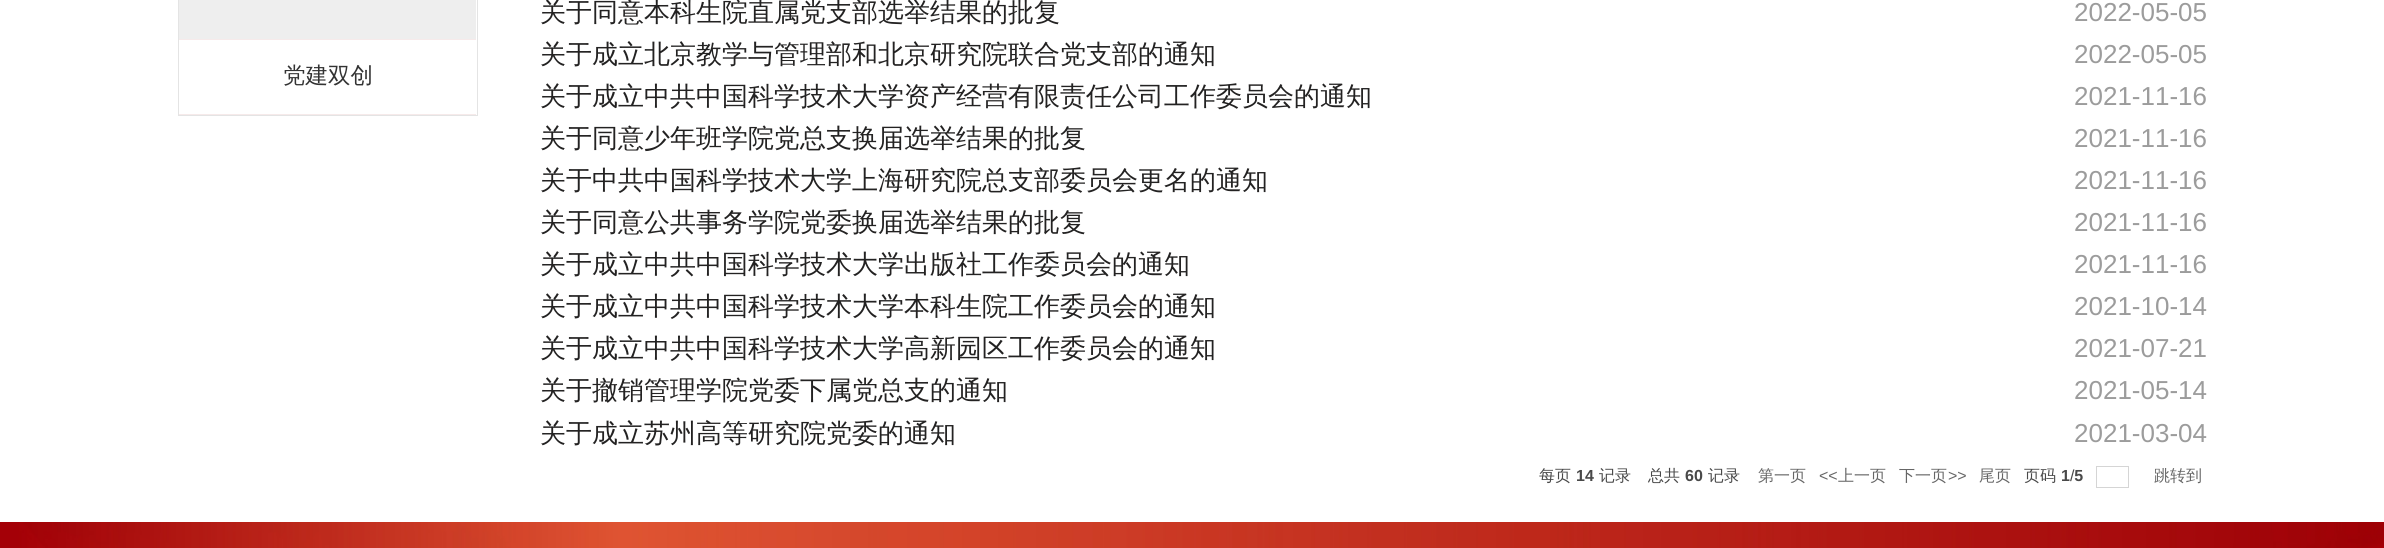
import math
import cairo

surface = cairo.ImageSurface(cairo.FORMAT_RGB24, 2384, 548)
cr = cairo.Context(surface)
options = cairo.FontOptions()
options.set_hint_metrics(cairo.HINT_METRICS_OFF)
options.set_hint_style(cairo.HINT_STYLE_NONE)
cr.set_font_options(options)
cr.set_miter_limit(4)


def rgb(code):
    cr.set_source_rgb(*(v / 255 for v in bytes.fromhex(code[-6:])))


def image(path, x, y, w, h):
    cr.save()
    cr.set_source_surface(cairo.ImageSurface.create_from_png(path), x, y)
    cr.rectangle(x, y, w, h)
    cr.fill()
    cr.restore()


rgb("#ffffff")
cr.paint()
cr.rectangle(178.5, -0.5, 299, 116)
rgb("#e4e4e4")
cr.set_line_width(1)
cr.stroke()
for x, y, w, h, color in [
    (179, 0, 297, 39, "#eeeeee"),
    (179, 39, 297, 1, "#f6eaea"),
    (179, 114, 297, 1, "#f6eaea"),
]:
    rgb(color)
    cr.rectangle(x, y, w, h)
    cr.fill()
cr.rectangle(2096.5, 466.5, 32, 21)
rgb("#d5d5d5")
cr.stroke()
image("img/1.png", 0, 522, 2384, 26)
cr.select_font_face("WenQuanYi Zen Hei Medium")
cr.set_font_size(22.5)
rgb("#333333")
cr.move_to(283, 83)
cr.show_text("党建双创")
cr.set_font_size(26)
rgb("#232222")
cr.move_to(540, 21)
cr.show_text("关于同意本科生院直属党支部选举结果的批复")
cr.select_font_face("Liberation Sans")
rgb("#9c9c9c")
cr.move_to(2074, 21)
cr.show_text("2022-05-05")
cr.select_font_face("WenQuanYi Zen Hei Medium")
rgb("#232222")
cr.move_to(540, 63)
cr.show_text("关于成立北京教学与管理部和北京研究院联合党支部的通知")
cr.select_font_face("Liberation Sans")
rgb("#9c9c9c")
cr.move_to(2074, 63)
cr.show_text("2022-05-05")
cr.select_font_face("WenQuanYi Zen Hei Medium")
rgb("#232222")
cr.move_to(540, 105)
cr.show_text("关于成立中共中国科学技术大学资产经营有限责任公司工作委员会的通知")
cr.select_font_face("Liberation Sans")
rgb("#9c9c9c")
cr.move_to(2074, 105)
cr.show_text("2021-11-16")
cr.select_font_face("WenQuanYi Zen Hei Medium")
rgb("#232222")
cr.move_to(540, 147)
cr.show_text("关于同意少年班学院党总支换届选举结果的批复")
cr.select_font_face("Liberation Sans")
rgb("#9c9c9c")
cr.move_to(2074, 147)
cr.show_text("2021-11-16")
cr.select_font_face("WenQuanYi Zen Hei Medium")
rgb("#232222")
cr.move_to(540, 189)
cr.show_text("关于中共中国科学技术大学上海研究院总支部委员会更名的通知")
cr.select_font_face("Liberation Sans")
rgb("#9c9c9c")
cr.move_to(2074, 189)
cr.show_text("2021-11-16")
cr.select_font_face("WenQuanYi Zen Hei Medium")
rgb("#232222")
cr.move_to(540, 231)
cr.show_text("关于同意公共事务学院党委换届选举结果的批复")
cr.select_font_face("Liberation Sans")
rgb("#9c9c9c")
cr.move_to(2074, 231)
cr.show_text("2021-11-16")
cr.select_font_face("WenQuanYi Zen Hei Medium")
rgb("#232222")
cr.move_to(540, 273)
cr.show_text("关于成立中共中国科学技术大学出版社工作委员会的通知")
cr.select_font_face("Liberation Sans")
rgb("#9c9c9c")
cr.move_to(2074, 273)
cr.show_text("2021-11-16")
cr.select_font_face("WenQuanYi Zen Hei Medium")
rgb("#232222")
cr.move_to(540, 315)
cr.show_text("关于成立中共中国科学技术大学本科生院工作委员会的通知")
cr.select_font_face("Liberation Sans")
rgb("#9c9c9c")
cr.move_to(2074, 315)
cr.show_text("2021-10-14")
cr.select_font_face("WenQuanYi Zen Hei Medium")
rgb("#232222")
cr.move_to(540, 357)
cr.show_text("关于成立中共中国科学技术大学高新园区工作委员会的通知")
cr.select_font_face("Liberation Sans")
rgb("#9c9c9c")
cr.move_to(2074, 357)
cr.show_text("2021-07-21")
cr.select_font_face("WenQuanYi Zen Hei Medium")
rgb("#232222")
cr.move_to(540, 399)
cr.show_text("关于撤销管理学院党委下属党总支的通知")
cr.select_font_face("Liberation Sans")
rgb("#9c9c9c")
cr.move_to(2074, 399)
cr.show_text("2021-05-14")
cr.select_font_face("WenQuanYi Zen Hei Medium")
rgb("#232222")
cr.move_to(540, 442)
cr.show_text("关于成立苏州高等研究院党委的通知")
cr.select_font_face("Liberation Sans")
rgb("#9c9c9c")
cr.move_to(2074, 442)
cr.show_text("2021-03-04")
cr.select_font_face("WenQuanYi Zen Hei Medium")
cr.set_font_size(16)
rgb("#494949")
cr.move_to(1539, 481)
cr.show_text("每页")
cr.select_font_face("Liberation Sans", cairo.FONT_SLANT_NORMAL, cairo.FONT_WEIGHT_BOLD)
cr.move_to(1576, 481)
cr.show_text("14")
cr.select_font_face("WenQuanYi Zen Hei Medium")
cr.move_to(1599, 481)
cr.show_text("记录")
cr.move_to(1648, 481)
cr.show_text("总共")
cr.select_font_face("Liberation Sans", cairo.FONT_SLANT_NORMAL, cairo.FONT_WEIGHT_BOLD)
cr.move_to(1685, 481)
cr.show_text("60")
cr.select_font_face("WenQuanYi Zen Hei Medium")
cr.move_to(1708, 481)
cr.show_text("记录")
rgb("#666666")
cr.move_to(1758, 481)
cr.show_text("第一页")
cr.select_font_face("Liberation Sans")
cr.move_to(1819, 481)
cr.show_text("<<")
cr.select_font_face("WenQuanYi Zen Hei Medium")
cr.move_to(1838, 481)
cr.show_text("上一页")
cr.move_to(1899, 481)
cr.show_text("下一页")
cr.select_font_face("Liberation Sans")
cr.move_to(1948, 481)
cr.show_text(">>")
cr.select_font_face("WenQuanYi Zen Hei Medium")
cr.move_to(1979, 481)
cr.show_text("尾页")
rgb("#494949")
cr.move_to(2024, 481)
cr.show_text("页码")
cr.select_font_face("Liberation Sans", cairo.FONT_SLANT_NORMAL, cairo.FONT_WEIGHT_BOLD)
cr.move_to(2061, 481)
cr.show_text("1 5")
cr.select_font_face("Liberation Sans")
cr.move_to(2070, 481)
cr.show_text("/")
cr.select_font_face("WenQuanYi Zen Hei Medium")
rgb("#666666")
cr.move_to(2154, 481)
cr.show_text("跳转到")
surface.write_to_png("page.png")
